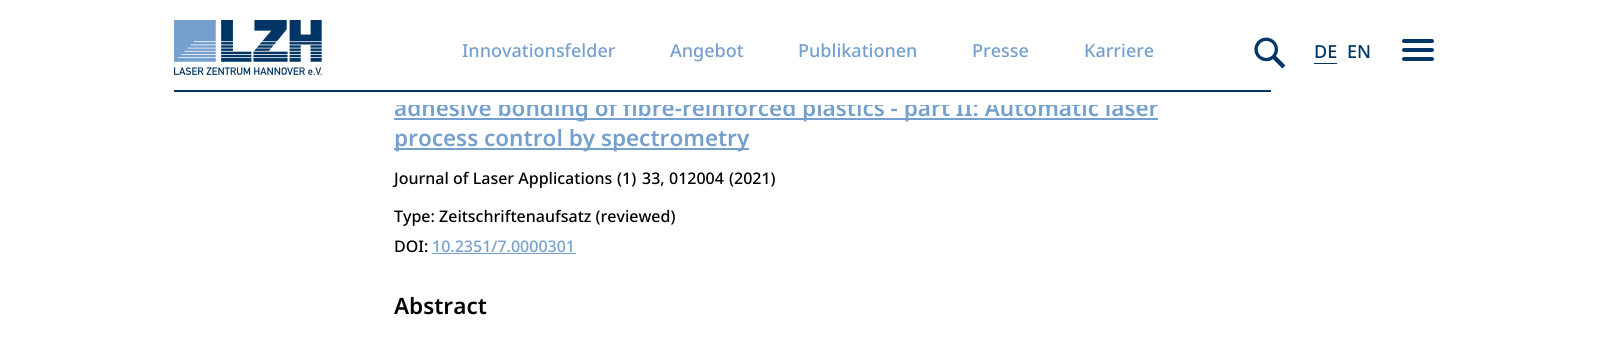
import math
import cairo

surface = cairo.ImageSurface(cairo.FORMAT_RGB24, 1608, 344)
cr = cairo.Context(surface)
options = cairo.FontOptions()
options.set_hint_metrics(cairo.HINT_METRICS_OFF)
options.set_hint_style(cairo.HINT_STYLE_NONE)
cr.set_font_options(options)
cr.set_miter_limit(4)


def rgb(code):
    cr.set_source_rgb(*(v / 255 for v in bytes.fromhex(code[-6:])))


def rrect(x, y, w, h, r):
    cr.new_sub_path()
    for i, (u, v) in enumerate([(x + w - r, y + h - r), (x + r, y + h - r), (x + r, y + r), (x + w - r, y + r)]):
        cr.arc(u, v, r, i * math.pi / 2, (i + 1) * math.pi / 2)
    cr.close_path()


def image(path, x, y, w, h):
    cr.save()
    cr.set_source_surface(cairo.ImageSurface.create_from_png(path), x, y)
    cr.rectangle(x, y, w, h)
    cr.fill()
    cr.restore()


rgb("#ffffff")
cr.paint()
image("img/1.png", 174, 20, 148, 55)
image("img/2.png", 1254, 37, 32, 32)
rgb("#003565")
cr.rectangle(1314, 63, 23, 1)
cr.fill()
rrect(1402, 39, 32, 4, 2)
cr.fill()
rrect(1402, 48, 32, 4, 2)
cr.fill()
rrect(1402, 57, 32, 4, 2)
cr.fill()
for x, y, w, h, color in [
    (174, 90, 1097, 2, "#003565"),
    (394, 118, 764, 2, "#75a0ce"),
    (394, 148, 355, 2, "#75a0ce"),
    (432, 253, 144, 1, "#75a0ce"),
]:
    rgb(color)
    cr.rectangle(x, y, w, h)
    cr.fill()
cr.select_font_face("Noto Sans Medium")
cr.set_font_size(18)
for x, y, s in [
    (462, 57, "Innovationsfelder"),
    (670, 57, "Angebot"),
    (798, 57, "Publikationen"),
    (972, 57, "Presse"),
    (1084, 57, "Karriere"),
]:
    cr.move_to(x, y)
    cr.show_text(s)
rgb("#003565")
cr.move_to(1314, 58)
cr.show_text("DE")
cr.move_to(1347, 58)
cr.show_text("EN")
cr.select_font_face("Noto Sans SemiBold")
cr.set_font_size(22.5)
rgb("#75a0ce")
cr.move_to(394, 116)
cr.show_text("adhesive bonding of fibre-reinforced plastics - part II: Automatic laser")
rgb("#ffffff")
cr.rectangle(396, 98, 762, 7)
cr.fill()
rgb("#75a0ce")
cr.move_to(394, 146)
cr.show_text("process control by spectrometry")
cr.select_font_face("Noto Sans Medium")
cr.set_font_size(16)
rgb("#000000")
for x, y, s in [
    (394, 184, "Journal of Laser Applications"),
    (617, 184, "(1)"),
    (642, 184, "33,"),
    (669, 184, "012004"),
    (729, 184, "(2021)"),
    (394, 222, "Type: Zeitschriftenaufsatz (reviewed)"),
    (394, 252, "DOI:"),
]:
    cr.move_to(x, y)
    cr.show_text(s)
rgb("#75a0ce")
cr.move_to(432, 252)
cr.show_text("10.2351/7.0000301")
cr.select_font_face("Noto Sans SemiBold")
cr.set_font_size(22.5)
rgb("#000000")
cr.move_to(394, 314)
cr.show_text("Abstract")
surface.write_to_png("page.png")
